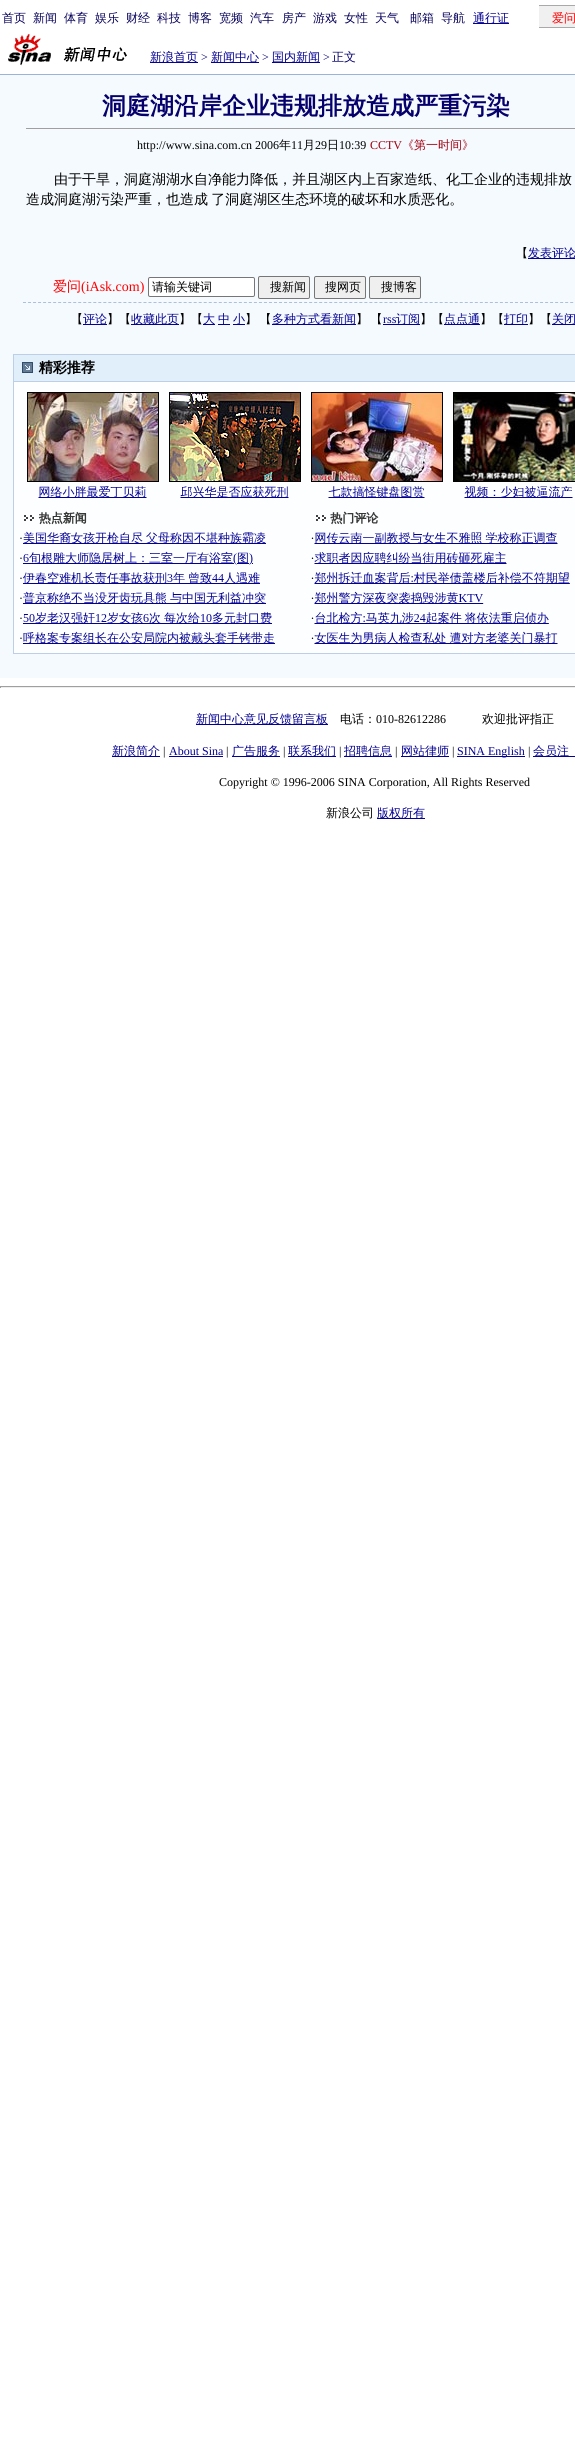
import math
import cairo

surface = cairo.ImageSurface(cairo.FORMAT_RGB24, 575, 2459)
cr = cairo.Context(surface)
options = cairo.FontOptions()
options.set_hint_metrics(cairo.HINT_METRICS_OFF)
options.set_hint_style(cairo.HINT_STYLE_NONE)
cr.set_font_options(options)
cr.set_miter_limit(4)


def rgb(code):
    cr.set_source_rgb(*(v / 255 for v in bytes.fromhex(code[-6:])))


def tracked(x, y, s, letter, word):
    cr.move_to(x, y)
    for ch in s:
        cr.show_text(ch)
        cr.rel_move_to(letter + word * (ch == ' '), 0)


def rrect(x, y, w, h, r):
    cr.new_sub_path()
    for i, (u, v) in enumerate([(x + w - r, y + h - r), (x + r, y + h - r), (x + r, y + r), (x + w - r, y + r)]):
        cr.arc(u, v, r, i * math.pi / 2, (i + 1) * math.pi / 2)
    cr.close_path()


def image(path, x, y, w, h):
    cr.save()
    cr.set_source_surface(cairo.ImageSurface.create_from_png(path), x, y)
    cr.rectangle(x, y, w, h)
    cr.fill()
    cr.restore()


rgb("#ffffff")
cr.paint()
for x, y, w, h, color in [
    (473, 23, 36, 1, "#040093"),
    (539, 5, 36, 1, "#a9a9a9"),
    (539, 6, 36, 21, "#f0f0f0"),
    (539, 27, 36, 1, "#a9a9a9"),
]:
    rgb(color)
    cr.rectangle(x, y, w, h)
    cr.fill()
image("img/1.png", 8, 34, 119, 32)
for x, y, w, h, color in [
    (150, 62, 48, 1, "#040093"),
    (211, 62, 48, 1, "#040093"),
    (272, 62, 48, 1, "#040093"),
    (0, 74, 575, 1, "#9bb3d7"),
    (0, 75, 575, 603, "#f5fafe"),
    (26, 128, 549, 1, "#9f9f9f"),
    (528, 258, 47, 1, "#040093"),
]:
    rgb(color)
    cr.rectangle(x, y, w, h)
    cr.fill()
rgb("#ffffff")
rrect(148.5, 277.5, 106, 19, 1.5)
cr.fill_preserve()
rgb("#767676")
cr.set_line_width(1)
cr.stroke()
rgb("#efefef")
rrect(258.5, 276.5, 51, 22, 1.5)
cr.fill_preserve()
rgb("#767676")
cr.stroke()
rgb("#efefef")
rrect(314.5, 276.5, 51, 22, 1.5)
cr.fill_preserve()
rgb("#767676")
cr.stroke()
rgb("#efefef")
rrect(369.5, 276.5, 51, 22, 1.5)
cr.fill_preserve()
rgb("#767676")
cr.stroke()
cr.new_path()
cr.move_to(23, 302.5)
cr.line_to(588, 302.5)
rgb("#acbfdd")
cr.set_dash([3, 2.02])
cr.stroke()
for x, y, w, h, color in [
    (83, 324, 24, 1, "#040093"),
    (131, 324, 48, 1, "#040093"),
    (203, 324, 12, 1, "#040093"),
    (218, 324, 12, 1, "#040093"),
    (233, 324, 12, 1, "#040093"),
    (272, 324, 84, 1, "#040093"),
    (383, 324, 37, 1, "#040093"),
    (444, 324, 36, 1, "#040093"),
    (504, 324, 24, 1, "#040093"),
    (552, 324, 23, 1, "#040093"),
]:
    rgb(color)
    cr.rectangle(x, y, w, h)
    cr.fill()
image("img/2.png", 13, 354, 562, 300)
for x, y, w, h, color in [
    (0, 686, 575, 1, "#9f9f9f"),
    (0, 687, 575, 1, "#eeeeee"),
    (0, 686, 1, 2, "#9f9f9f"),
    (196, 724, 132, 1, "#040093"),
    (112, 756, 48, 1, "#040093"),
    (169, 756, 54, 1, "#040093"),
    (232, 756, 48, 1, "#040093"),
    (288, 756, 48, 1, "#040093"),
    (344, 756, 48, 1, "#040093"),
    (401, 756, 48, 1, "#040093"),
    (457, 756, 68, 1, "#040093"),
    (533, 756, 42, 1, "#040093"),
    (377, 818, 48, 1, "#040093"),
]:
    rgb(color)
    cr.rectangle(x, y, w, h)
    cr.fill()
cr.select_font_face("WenQuanYi Zen Hei Medium")
cr.set_font_size(12)
rgb("#07015b")
for x, y, s in [
    (2, 22, "首页"),
    (33, 22, "新闻"),
    (64, 22, "体育"),
    (95, 22, "娱乐"),
    (126, 22, "财经"),
    (157, 22, "科技"),
    (188, 22, "博客"),
    (219, 22, "宽频"),
    (250, 22, "汽车"),
    (282, 22, "房产"),
    (313, 22, "游戏"),
    (344, 22, "女性"),
    (375, 22, "天气"),
    (410, 22, "邮箱"),
    (441, 22, "导航"),
]:
    cr.move_to(x, y)
    cr.show_text(s)
rgb("#040093")
cr.move_to(473, 22)
cr.show_text("通行证")
rgb("#ff0000")
cr.move_to(552, 22)
cr.show_text("爱问")
rgb("#040093")
cr.move_to(150, 61)
cr.show_text("新浪首页")
cr.select_font_face("Liberation Serif")
rgb("#05006c")
cr.move_to(201, 61)
cr.show_text(">")
cr.select_font_face("WenQuanYi Zen Hei Medium")
rgb("#040093")
cr.move_to(211, 61)
cr.show_text("新闻中心")
cr.select_font_face("Liberation Serif")
rgb("#05006c")
cr.move_to(262, 61)
cr.show_text(">")
cr.select_font_face("WenQuanYi Zen Hei Medium")
rgb("#040093")
cr.move_to(272, 61)
cr.show_text("国内新闻")
cr.select_font_face("Liberation Serif")
rgb("#05006c")
cr.move_to(323, 61)
cr.show_text(">")
cr.select_font_face("WenQuanYi Zen Hei Medium")
cr.move_to(332, 61)
cr.show_text("正文")
cr.select_font_face("WenQuanYi Zen Hei", cairo.FONT_SLANT_NORMAL, cairo.FONT_WEIGHT_BOLD)
cr.set_font_size(24)
cr.move_to(102, 114)
cr.show_text("洞庭湖沿岸企业违规排放造成严重污染")
cr.select_font_face("Liberation Serif")
cr.set_font_size(12)
rgb("#000000")
cr.move_to(137, 149)
cr.show_text("http://www.sina.com.cn 2006")
cr.select_font_face("WenQuanYi Zen Hei Medium")
cr.move_to(279, 149)
cr.show_text("年")
cr.select_font_face("Liberation Serif")
cr.move_to(291, 149)
cr.show_text("11")
cr.select_font_face("WenQuanYi Zen Hei Medium")
cr.move_to(303, 149)
cr.show_text("月")
cr.select_font_face("Liberation Serif")
cr.move_to(315, 149)
cr.show_text("29")
cr.select_font_face("WenQuanYi Zen Hei Medium")
cr.move_to(327, 149)
cr.show_text("日")
cr.select_font_face("Liberation Serif")
cr.move_to(339, 149)
cr.show_text("10:39")
rgb("#a20010")
cr.move_to(370, 149)
cr.show_text("CCTV")
cr.select_font_face("WenQuanYi Zen Hei Medium")
cr.move_to(402, 149)
cr.show_text("《第一时间》")
cr.set_font_size(14)
rgb("#000000")
cr.move_to(54, 184)
cr.show_text("由于干旱，洞庭湖湖水自净能力降低，并且湖区内上百家造纸、化工企业的违规排放")
tracked(26, 204, "造成洞庭湖污染严重，也造成 了洞庭湖区生态环境的破坏和水质恶化。", 0, -1)
cr.set_font_size(12)
cr.move_to(516, 257)
cr.show_text("【")
rgb("#040093")
cr.move_to(528, 257)
cr.show_text("发表评论")
cr.set_font_size(14)
rgb("#ff0000")
cr.move_to(53, 291)
cr.show_text("爱问")
cr.select_font_face("Liberation Serif")
cr.move_to(81, 291)
cr.show_text("(iAsk.com)")
cr.select_font_face("WenQuanYi Zen Hei Medium")
cr.set_font_size(12)
rgb("#000000")
for x, y, s in [
    (152, 291, "请输关键词"),
    (270, 291, "搜新闻"),
    (325, 291, "搜网页"),
    (381, 291, "搜博客"),
    (71, 323, "【"),
]:
    cr.move_to(x, y)
    cr.show_text(s)
rgb("#040093")
cr.move_to(83, 323)
cr.show_text("评论")
rgb("#000000")
cr.move_to(107, 323)
cr.show_text("】【")
rgb("#040093")
cr.move_to(131, 323)
cr.show_text("收藏此页")
rgb("#000000")
cr.move_to(179, 323)
cr.show_text("】【")
rgb("#040093")
for x, y, s in [
    (203, 323, "大"),
    (218, 323, "中"),
    (233, 323, "小"),
]:
    cr.move_to(x, y)
    cr.show_text(s)
rgb("#000000")
tracked(245, 323, "】 【", 0, -1)
rgb("#040093")
cr.move_to(272, 323)
cr.show_text("多种方式看新闻")
rgb("#000000")
tracked(356, 323, "】 【", 0, -1)
cr.select_font_face("Liberation Serif")
rgb("#040093")
cr.move_to(383, 323)
cr.show_text("rss")
cr.select_font_face("WenQuanYi Zen Hei Medium")
cr.move_to(396, 323)
cr.show_text("订阅")
rgb("#000000")
cr.move_to(420, 323)
cr.show_text("】【")
rgb("#040093")
cr.move_to(444, 323)
cr.show_text("点点通")
rgb("#000000")
cr.move_to(480, 323)
cr.show_text("】【")
rgb("#040093")
cr.move_to(504, 323)
cr.show_text("打印")
rgb("#000000")
cr.move_to(528, 323)
cr.show_text("】【")
rgb("#040093")
cr.move_to(552, 323)
cr.show_text("关闭")
cr.move_to(196, 723)
cr.show_text("新闻中心意见反馈留言板")
rgb("#000000")
cr.move_to(340, 723)
cr.show_text("电话：")
cr.select_font_face("Liberation Serif")
cr.move_to(376, 723)
cr.show_text("010-82612286")
cr.select_font_face("WenQuanYi Zen Hei Medium")
cr.move_to(482, 723)
cr.show_text("欢迎批评指正")
rgb("#040093")
cr.move_to(112, 755)
cr.show_text("新浪简介")
cr.select_font_face("Liberation Serif")
rgb("#000000")
cr.move_to(163, 755)
cr.show_text("|")
rgb("#040093")
cr.move_to(169, 755)
cr.show_text("About Sina")
rgb("#000000")
cr.move_to(226, 755)
cr.show_text("|")
cr.select_font_face("WenQuanYi Zen Hei Medium")
rgb("#040093")
cr.move_to(232, 755)
cr.show_text("广告服务")
cr.select_font_face("Liberation Serif")
rgb("#000000")
cr.move_to(283, 755)
cr.show_text("|")
cr.select_font_face("WenQuanYi Zen Hei Medium")
rgb("#040093")
cr.move_to(288, 755)
cr.show_text("联系我们")
cr.select_font_face("Liberation Serif")
rgb("#000000")
cr.move_to(339, 755)
cr.show_text("|")
cr.select_font_face("WenQuanYi Zen Hei Medium")
rgb("#040093")
cr.move_to(344, 755)
cr.show_text("招聘信息")
cr.select_font_face("Liberation Serif")
rgb("#000000")
cr.move_to(395, 755)
cr.show_text("|")
cr.select_font_face("WenQuanYi Zen Hei Medium")
rgb("#040093")
cr.move_to(401, 755)
cr.show_text("网站律师")
cr.select_font_face("Liberation Serif")
rgb("#000000")
cr.move_to(452, 755)
cr.show_text("|")
rgb("#040093")
cr.move_to(457, 755)
cr.show_text("SINA English")
rgb("#000000")
cr.move_to(528, 755)
cr.show_text("|")
cr.select_font_face("WenQuanYi Zen Hei Medium")
rgb("#040093")
cr.move_to(533, 755)
cr.show_text("会员注")
cr.select_font_face("Liberation Serif")
rgb("#000000")
cr.move_to(219, 786)
cr.show_text("Copyright © 1996-2006 SINA Corporation, All Rights Reserved")
cr.select_font_face("WenQuanYi Zen Hei Medium")
cr.move_to(326, 817)
cr.show_text("新浪公司")
rgb("#040093")
cr.move_to(377, 817)
cr.show_text("版权所有")
surface.write_to_png("page.png")
